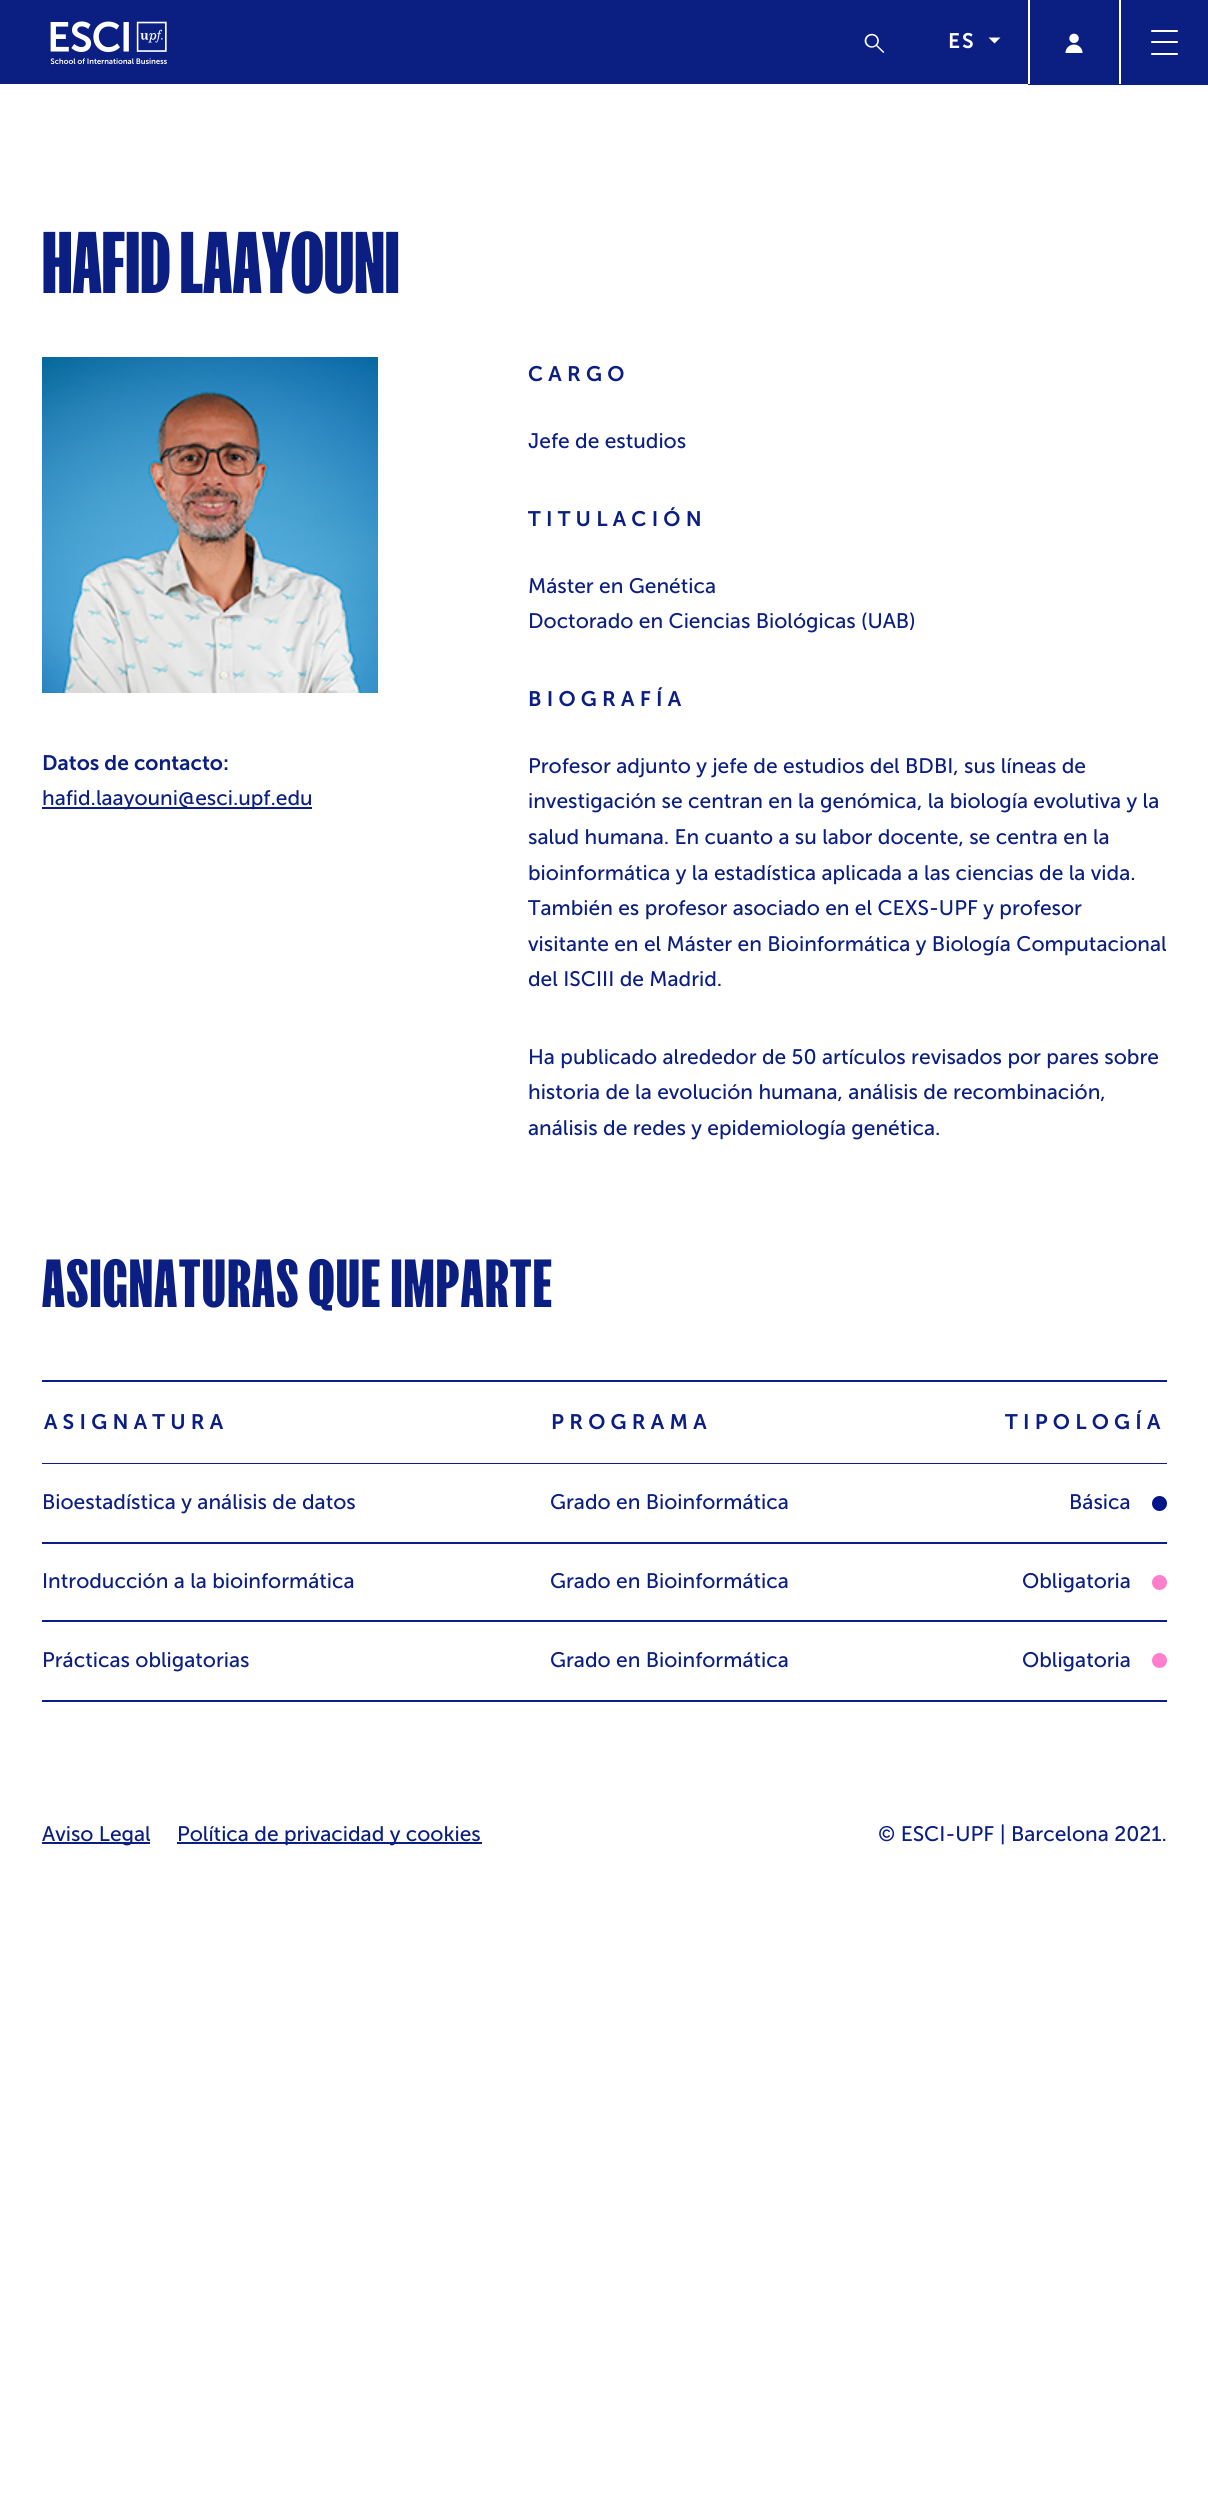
import math
import cairo

surface = cairo.ImageSurface(cairo.FORMAT_RGB24, 1208, 2518)
cr = cairo.Context(surface)
options = cairo.FontOptions()
options.set_hint_metrics(cairo.HINT_METRICS_OFF)
options.set_hint_style(cairo.HINT_STYLE_NONE)
cr.set_font_options(options)
cr.set_miter_limit(4)


def rgb(code):
    cr.set_source_rgb(*(v / 255 for v in bytes.fromhex(code[-6:])))


def tracked(x, y, s, letter, word):
    cr.move_to(x, y)
    for ch in s:
        cr.show_text(ch)
        cr.rel_move_to(letter + word * (ch == ' '), 0)


def rrect(x, y, w, h, r):
    cr.new_sub_path()
    for i, (u, v) in enumerate([(x + w - r, y + h - r), (x + r, y + h - r), (x + r, y + r), (x + w - r, y + r)]):
        cr.arc(u, v, r, i * math.pi / 2, (i + 1) * math.pi / 2)
    cr.close_path()


def image(path, x, y, w, h):
    cr.save()
    cr.set_source_surface(cairo.ImageSurface.create_from_png(path), x, y)
    cr.rectangle(x, y, w, h)
    cr.fill()
    cr.restore()


rgb("#ffffff")
cr.paint()
rgb("#0b1e81")
cr.rectangle(0, 0, 1208, 84)
cr.fill()
image("img/1.png", 50, 21, 117, 44)
cr.rectangle(1028, 84, 180, 1)
cr.fill()
rgb("#ffffff")
cr.rectangle(1028, 0, 2, 84)
cr.fill()
image("img/2.png", 1065, 33, 18, 20)
image("img/3.png", 864, 33, 21, 20)
cr.new_path()
cr.move_to(988.5, 37.5)
cr.line_to(1000.5, 37.5)
cr.line_to(994.5, 43.5)
cr.close_path()
cr.fill()
cr.rectangle(1119, 0, 2, 84)
cr.fill()
rrect(1151, 30, 27, 2, 1)
cr.fill()
rrect(1151, 41, 27, 2, 1)
cr.fill()
rrect(1151, 53, 27, 2, 1)
cr.fill()
image("img/4.png", 42, 357, 336, 336)
for x, y, w, h, color in [
    (42, 807, 270, 2, "#0b1e81"),
    (42, 1380, 1125, 2, "#0b1e81"),
    (42, 1463, 1125, 1, "#0b1e81"),
    (42, 1542, 1125, 2, "#0b1e81"),
]:
    rgb(color)
    cr.rectangle(x, y, w, h)
    cr.fill()
rgb("#001489")
cr.arc(1159.5, 1503.5, 7.5, 0, 2 * math.pi)
cr.fill()
rgb("#0b1e81")
cr.rectangle(42, 1620, 1125, 2)
cr.fill()
rgb("#fe80cd")
cr.arc(1159.5, 1582.5, 7.5, 0, 2 * math.pi)
cr.fill()
rgb("#0b1e81")
cr.rectangle(42, 1700, 1125, 2)
cr.fill()
rgb("#fe80cd")
cr.arc(1159.5, 1660.5, 7.5, 0, 2 * math.pi)
cr.fill()
rgb("#0b1e81")
cr.rectangle(42, 1842, 108, 2)
cr.fill()
cr.rectangle(177, 1842, 305, 2)
cr.fill()
cr.select_font_face("Museo Sans SemiBold")
cr.set_font_size(21)
rgb("#ffffff")
tracked(948, 48, "ES", 2, 0)
cr.select_font_face("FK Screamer", cairo.FONT_SLANT_NORMAL, cairo.FONT_WEIGHT_BOLD)
cr.set_font_size(81)
rgb("#0b1e81")
cr.move_to(42, 293)
cr.show_text("HAFID LAAYOUNI")
cr.select_font_face("Museo Sans SemiBold")
cr.set_font_size(21)
cr.move_to(42, 770)
cr.show_text("Datos de contacto:")
cr.select_font_face("Museo Sans")
cr.move_to(42, 805)
cr.show_text("hafid.laayouni@esci.upf.edu")
cr.select_font_face("Museo Sans SemiBold")
tracked(528, 381, "CARGO", 5.25, 0)
cr.select_font_face("Museo Sans")
cr.move_to(528, 448)
cr.show_text("Jefe de estudios")
cr.select_font_face("Museo Sans SemiBold")
tracked(528, 526, "TITULACIÓN", 5.25, 0)
cr.select_font_face("Museo Sans")
cr.move_to(528, 593)
cr.show_text("Máster en Genética")
cr.move_to(528, 628)
cr.show_text("Doctorado en Ciencias Biológicas (UAB)")
cr.select_font_face("Museo Sans SemiBold")
tracked(528, 706, "BIOGRAFÍA", 5.25, 0)
cr.select_font_face("Museo Sans")
for x, y, s in [
    (528, 773, "Profesor adjunto y jefe de estudios del BDBI, sus líneas de"),
    (528, 808, "investigación se centran en la genómica, la biología evolutiva y la"),
    (528, 844, "salud humana. En cuanto a su labor docente, se centra en la"),
    (528, 880, "bioinformática y la estadística aplicada a las ciencias de la vida."),
    (528, 915, "También es profesor asociado en el CEXS-UPF y profesor"),
    (528, 951, "visitante en el Máster en Bioinformática y Biología Computacional"),
    (528, 986, "del ISCIII de Madrid."),
    (528, 1064, "Ha publicado alrededor de 50 artículos revisados por pares sobre"),
    (528, 1099, "historia de la evolución humana, análisis de recombinación,"),
    (528, 1135, "análisis de redes y epidemiología genética."),
]:
    cr.move_to(x, y)
    cr.show_text(s)
cr.select_font_face("FK Screamer", cairo.FONT_SLANT_NORMAL, cairo.FONT_WEIGHT_BOLD)
cr.set_font_size(63)
tracked(42, 1307, "ASIGNATURAS QUE IMPARTE", 1.6, 0)
cr.select_font_face("Museo Sans SemiBold")
cr.set_font_size(21)
for x, y, s in [
    (44, 1429, "ASIGNATURA"),
    (551, 1429, "PROGRAMA"),
    (1005, 1429, "TIPOLOGÍA"),
]:
    tracked(x, y, s, 5.25, 0)
cr.select_font_face("Museo Sans")
for x, y, s in [
    (42, 1509, "Bioestadística y análisis de datos"),
    (550, 1509, "Grado en Bioinformática"),
    (1069, 1509, "Básica"),
    (42, 1588, "Introducción a la bioinformática"),
    (550, 1588, "Grado en Bioinformática"),
    (1022, 1588, "Obligatoria"),
    (42, 1667, "Prácticas obligatorias"),
    (550, 1667, "Grado en Bioinformática"),
    (1022, 1667, "Obligatoria"),
    (42, 1841, "Aviso Legal"),
    (177, 1841, "Política de privacidad y cookies"),
    (878, 1841, "© ESCI-UPF | Barcelona 2021."),
]:
    cr.move_to(x, y)
    cr.show_text(s)
surface.write_to_png("page.png")
